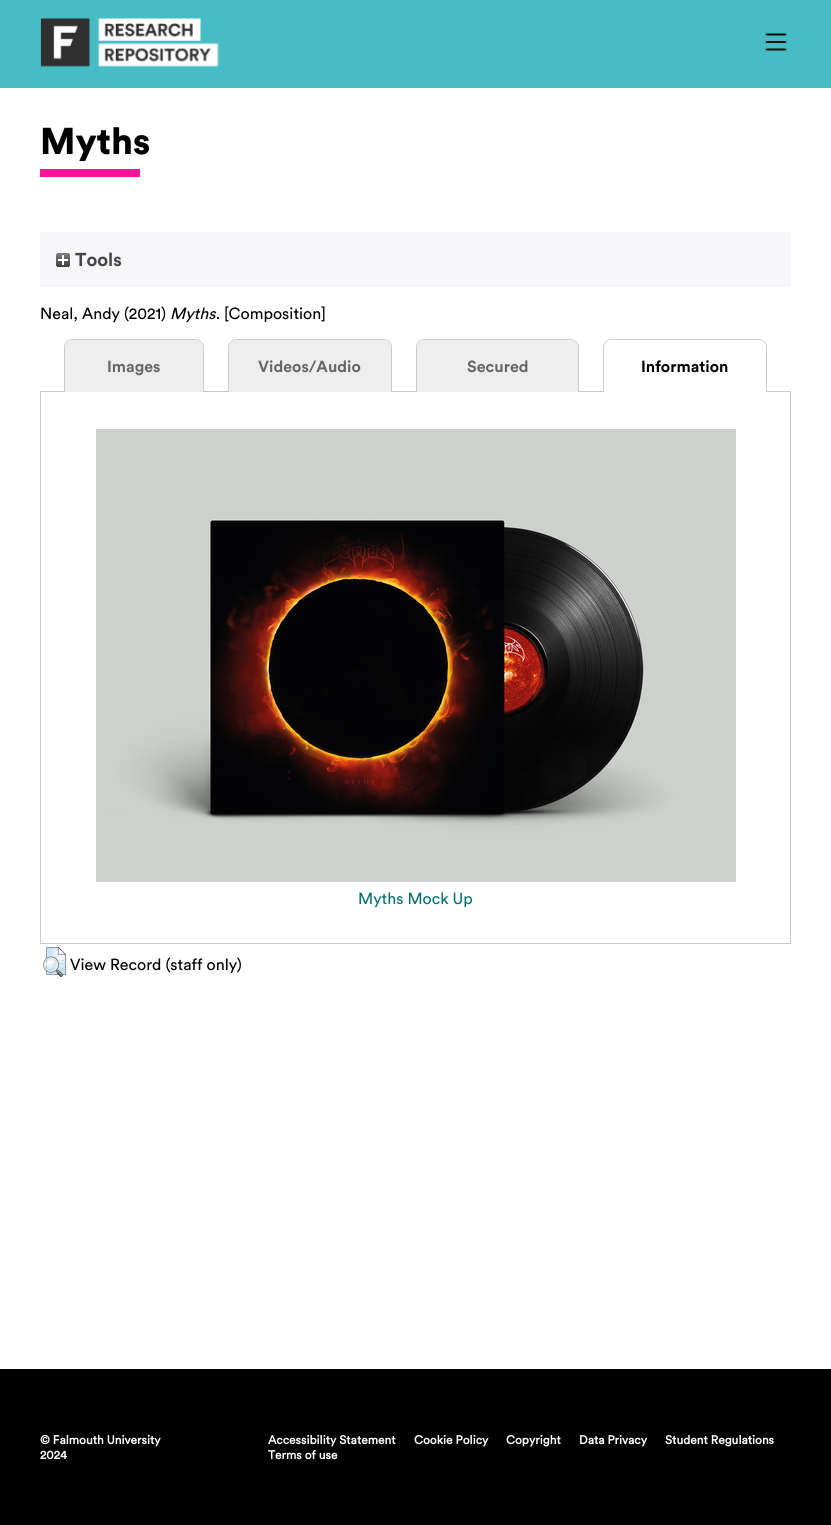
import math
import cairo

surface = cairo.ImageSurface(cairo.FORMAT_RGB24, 831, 1525)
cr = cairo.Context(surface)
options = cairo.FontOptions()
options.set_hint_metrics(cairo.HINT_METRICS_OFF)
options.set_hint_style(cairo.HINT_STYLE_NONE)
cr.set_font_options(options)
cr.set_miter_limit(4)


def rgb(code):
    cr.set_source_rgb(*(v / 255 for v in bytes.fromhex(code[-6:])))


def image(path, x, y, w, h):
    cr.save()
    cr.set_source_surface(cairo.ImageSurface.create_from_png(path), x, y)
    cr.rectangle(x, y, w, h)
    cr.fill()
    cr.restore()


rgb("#ffffff")
cr.paint()
rgb("#48bcc4")
cr.rectangle(0, 0, 831, 88)
cr.fill()
image("img/1.png", 40, 18, 179, 49)
image("img/2.png", 765, 33, 22, 18)
rgb("#f71599")
cr.rectangle(40, 169, 100, 8)
cr.fill()
rgb("#f6f6fb")
cr.rectangle(40, 232, 751, 55)
cr.fill()
image("img/3.png", 56, 253, 14, 14)
rgb("#cccccc")
cr.rectangle(40, 391, 188, 1)
cr.fill()
rgb("#eeeeee")
cr.new_path()
cr.move_to(72, 340)
cr.line_to(196, 340)
cr.curve_to(200, 340, 203, 343, 203, 347)
cr.line_to(203, 392)
cr.line_to(65, 392)
cr.line_to(65, 347)
cr.curve_to(65, 343, 68, 340, 72, 340)
cr.close_path()
cr.fill()
rgb("#cccccc")
cr.set_fill_rule(cairo.FILL_RULE_EVEN_ODD)
cr.new_path()
cr.move_to(72, 339)
cr.line_to(196, 339)
cr.curve_to(200, 339, 204, 343, 204, 347)
cr.line_to(204, 392)
cr.line_to(64, 392)
cr.line_to(64, 347)
cr.curve_to(64, 343, 68, 339, 72, 339)
cr.close_path()
cr.move_to(72, 340)
cr.line_to(196, 340)
cr.curve_to(200, 340, 203, 343, 203, 347)
cr.line_to(203, 392)
cr.line_to(65, 392)
cr.line_to(65, 347)
cr.curve_to(65, 343, 68, 340, 72, 340)
cr.close_path()
cr.fill()
cr.rectangle(392, 391, 24, 1)
cr.fill()
rgb("#eeeeee")
cr.new_path()
cr.move_to(236, 340)
cr.line_to(384, 340)
cr.curve_to(388, 340, 391, 343, 391, 347)
cr.line_to(391, 392)
cr.line_to(229, 392)
cr.line_to(229, 347)
cr.curve_to(229, 343, 232, 340, 236, 340)
cr.close_path()
cr.fill()
rgb("#cccccc")
cr.new_path()
cr.move_to(236, 339)
cr.line_to(384, 339)
cr.curve_to(388, 339, 392, 343, 392, 347)
cr.line_to(392, 392)
cr.line_to(228, 392)
cr.line_to(228, 347)
cr.curve_to(228, 343, 232, 339, 236, 339)
cr.close_path()
cr.move_to(236, 340)
cr.line_to(384, 340)
cr.curve_to(388, 340, 391, 343, 391, 347)
cr.line_to(391, 392)
cr.line_to(229, 392)
cr.line_to(229, 347)
cr.curve_to(229, 343, 232, 340, 236, 340)
cr.close_path()
cr.fill()
cr.rectangle(579, 391, 24, 1)
cr.fill()
rgb("#eeeeee")
cr.new_path()
cr.move_to(424, 340)
cr.line_to(571, 340)
cr.curve_to(575, 340, 578, 343, 578, 347)
cr.line_to(578, 392)
cr.line_to(417, 392)
cr.line_to(417, 347)
cr.curve_to(417, 343, 420, 340, 424, 340)
cr.close_path()
cr.fill()
rgb("#cccccc")
cr.new_path()
cr.move_to(424, 339)
cr.line_to(571, 339)
cr.curve_to(575, 339, 579, 343, 579, 347)
cr.line_to(579, 392)
cr.line_to(416, 392)
cr.line_to(416, 347)
cr.curve_to(416, 343, 420, 339, 424, 339)
cr.close_path()
cr.move_to(424, 340)
cr.line_to(571, 340)
cr.curve_to(575, 340, 578, 343, 578, 347)
cr.line_to(578, 392)
cr.line_to(417, 392)
cr.line_to(417, 347)
cr.curve_to(417, 343, 420, 340, 424, 340)
cr.close_path()
cr.fill()
cr.rectangle(767, 391, 24, 1)
cr.fill()
cr.new_path()
cr.move_to(611, 339)
cr.line_to(759, 339)
cr.curve_to(763, 339, 767, 343, 767, 347)
cr.line_to(767, 392)
cr.line_to(603, 392)
cr.line_to(603, 347)
cr.curve_to(603, 343, 607, 339, 611, 339)
cr.close_path()
cr.move_to(611, 340)
cr.line_to(759, 340)
cr.curve_to(763, 340, 766, 343, 766, 347)
cr.line_to(766, 392)
cr.line_to(604, 392)
cr.line_to(604, 347)
cr.curve_to(604, 343, 607, 340, 611, 340)
cr.close_path()
cr.fill()
for x, y, w, h, color in [
    (790, 392, 1, 552, "#cccccc"),
    (40, 943, 751, 1, "#cccccc"),
    (40, 392, 1, 552, "#cccccc"),
]:
    rgb(color)
    cr.rectangle(x, y, w, h)
    cr.fill()
image("img/4.png", 96, 429, 640, 453)
image("img/5.png", 43, 947, 23, 30)
rgb("#000000")
cr.rectangle(0, 1369, 831, 156)
cr.fill()
cr.select_font_face("Circular Black")
cr.set_font_size(37)
cr.move_to(40, 154)
cr.show_text("Myths")
cr.select_font_face("Circular", cairo.FONT_SLANT_NORMAL, cairo.FONT_WEIGHT_BOLD)
cr.set_font_size(18.5)
rgb("#444444")
cr.move_to(75, 266)
cr.show_text("Tools")
cr.select_font_face("Circular")
cr.set_font_size(16)
rgb("#000000")
cr.move_to(40, 319)
cr.show_text("Neal, Andy (2021)")
cr.select_font_face("Circular", cairo.FONT_SLANT_ITALIC)
cr.move_to(170, 319)
cr.show_text("Myths.")
cr.select_font_face("Circular")
cr.move_to(224, 319)
cr.show_text("[Composition]")
cr.select_font_face("Circular", cairo.FONT_SLANT_NORMAL, cairo.FONT_WEIGHT_BOLD)
rgb("#666666")
for x, y, s in [
    (107, 372, "Images"),
    (258, 372, "Videos/Audio"),
    (467, 372, "Secured"),
]:
    cr.move_to(x, y)
    cr.show_text(s)
rgb("#000000")
cr.move_to(641, 372)
cr.show_text("Information")
cr.select_font_face("Circular")
rgb("#077272")
cr.move_to(358, 904)
cr.show_text("Myths Mock Up")
rgb("#000000")
cr.move_to(70, 970)
cr.show_text("View Record (staff only)")
cr.select_font_face("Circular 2", cairo.FONT_SLANT_NORMAL, cairo.FONT_WEIGHT_BOLD)
cr.set_font_size(12)
rgb("#ffffff")
for x, y, s in [
    (40, 1444, "© Falmouth University"),
    (40, 1459, "2024"),
    (268, 1444, "Accessibility Statement"),
    (414, 1444, "Cookie Policy"),
    (506, 1444, "Copyright"),
    (579, 1444, "Data Privacy"),
    (665, 1444, "Student Regulations"),
    (268, 1459, "Terms of use"),
]:
    cr.move_to(x, y)
    cr.show_text(s)
surface.write_to_png("page.png")
